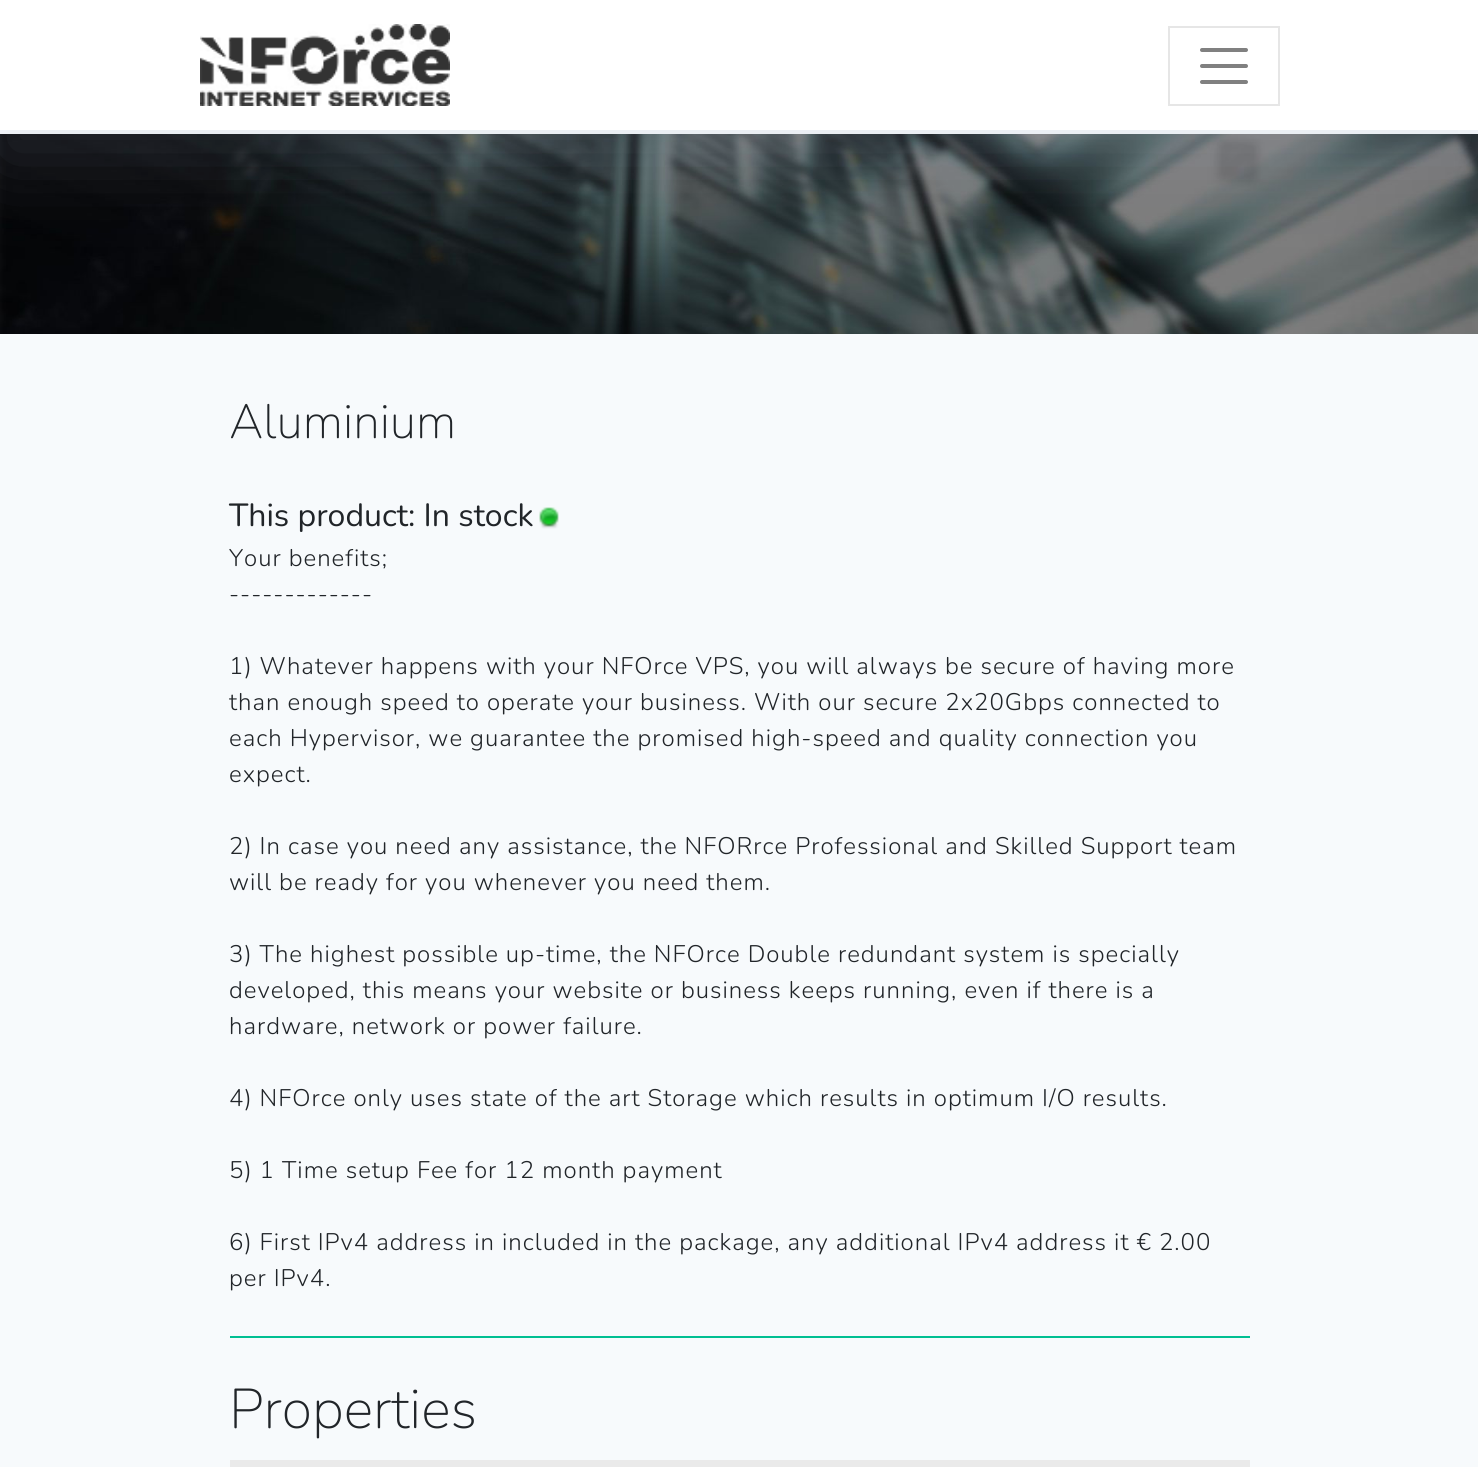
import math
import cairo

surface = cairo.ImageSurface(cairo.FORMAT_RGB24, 1478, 1467)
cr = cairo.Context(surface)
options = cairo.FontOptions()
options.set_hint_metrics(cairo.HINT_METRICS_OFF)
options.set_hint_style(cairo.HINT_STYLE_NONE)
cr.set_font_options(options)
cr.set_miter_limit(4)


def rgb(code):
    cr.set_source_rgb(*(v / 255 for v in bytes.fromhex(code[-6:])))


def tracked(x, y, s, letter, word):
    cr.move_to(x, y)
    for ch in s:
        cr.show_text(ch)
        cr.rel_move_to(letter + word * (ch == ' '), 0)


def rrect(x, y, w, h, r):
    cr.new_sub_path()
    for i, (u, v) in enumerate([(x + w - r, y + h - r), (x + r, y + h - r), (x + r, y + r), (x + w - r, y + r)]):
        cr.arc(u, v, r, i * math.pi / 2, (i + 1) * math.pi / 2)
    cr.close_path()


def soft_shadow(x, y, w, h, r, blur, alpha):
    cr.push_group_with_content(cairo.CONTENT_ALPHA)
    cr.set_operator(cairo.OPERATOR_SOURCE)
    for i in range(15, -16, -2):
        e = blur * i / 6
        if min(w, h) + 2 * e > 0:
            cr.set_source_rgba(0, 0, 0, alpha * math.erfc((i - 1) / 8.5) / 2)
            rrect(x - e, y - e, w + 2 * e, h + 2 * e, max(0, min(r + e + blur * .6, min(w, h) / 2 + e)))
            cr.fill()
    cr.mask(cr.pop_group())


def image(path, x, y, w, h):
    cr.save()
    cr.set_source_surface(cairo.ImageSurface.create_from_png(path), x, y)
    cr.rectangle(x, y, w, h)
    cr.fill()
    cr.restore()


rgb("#f7fafc")
cr.paint()
image("img/2.png", 0, 134, 1478, 200)
rgb("#a6adc9")
soft_shadow(0, 30, 1478, 130, 0, 40, 0.2)
rgb("#ffffff")
cr.rectangle(0, 0, 1478, 130)
cr.fill()
image("img/1.png", 200, 24, 250, 82)
cr.rectangle(1169, 27, 110, 78)
rgb("#e6e6e6")
cr.stroke()
cr.new_path()
cr.move_to(1202, 50)
cr.line_to(1246, 50)
cr.move_to(1202, 66)
cr.line_to(1246, 66)
cr.move_to(1202, 82)
cr.line_to(1246, 82)
rgb("#808080")
cr.set_line_width(4)
cr.set_line_cap(cairo.LINE_CAP_ROUND)
cr.stroke()
image("img/3.png", 539, 507, 20, 22)
rgb("#00bf92")
cr.rectangle(230, 1336, 1020, 2)
cr.fill()
rgb("#eaeaea")
cr.rectangle(230, 1460, 1020, 7)
cr.fill()
cr.select_font_face("Nunito ExtraLight")
cr.set_font_size(48)
rgb("#212529")
cr.move_to(229, 438)
cr.show_text("Aluminium")
cr.select_font_face("Nunito")
cr.set_font_size(32)
cr.move_to(229, 526)
cr.show_text("This product: In stock")
cr.select_font_face("Nunito Light")
cr.set_font_size(24)
for x, y, s in [
    (229, 566, "Your benefits;"),
    (229, 602, "-------------"),
    (229, 674, "1) Whatever happens with your NFOrce VPS, you will always be secure of having more"),
    (229, 710, "than enough speed to operate your business. With our secure 2x20Gbps connected to"),
    (229, 746, "each Hypervisor, we guarantee the promised high-speed and quality connection you"),
    (229, 782, "expect."),
    (229, 854, "2) In case you need any assistance, the NFORrce Professional and Skilled Support team"),
    (229, 890, "will be ready for you whenever you need them."),
    (229, 962, "3) The highest possible up-time, the NFOrce Double redundant system is specially"),
    (229, 998, "developed, this means your website or business keeps running, even if there is a"),
    (229, 1034, "hardware, network or power failure."),
    (229, 1106, "4) NFOrce only uses state of the art Storage which results in optimum I/O results."),
    (229, 1178, "5) 1 Time setup Fee for 12 month payment"),
    (229, 1250, "6) First IPv4 address in included in the package, any additional IPv4 address it € 2.00"),
    (229, 1286, "per IPv4."),
]:
    tracked(x, y, s, 1, 0)
cr.select_font_face("Nunito ExtraLight")
cr.set_font_size(56)
cr.move_to(229, 1428)
cr.show_text("Properties")
surface.write_to_png("page.png")
